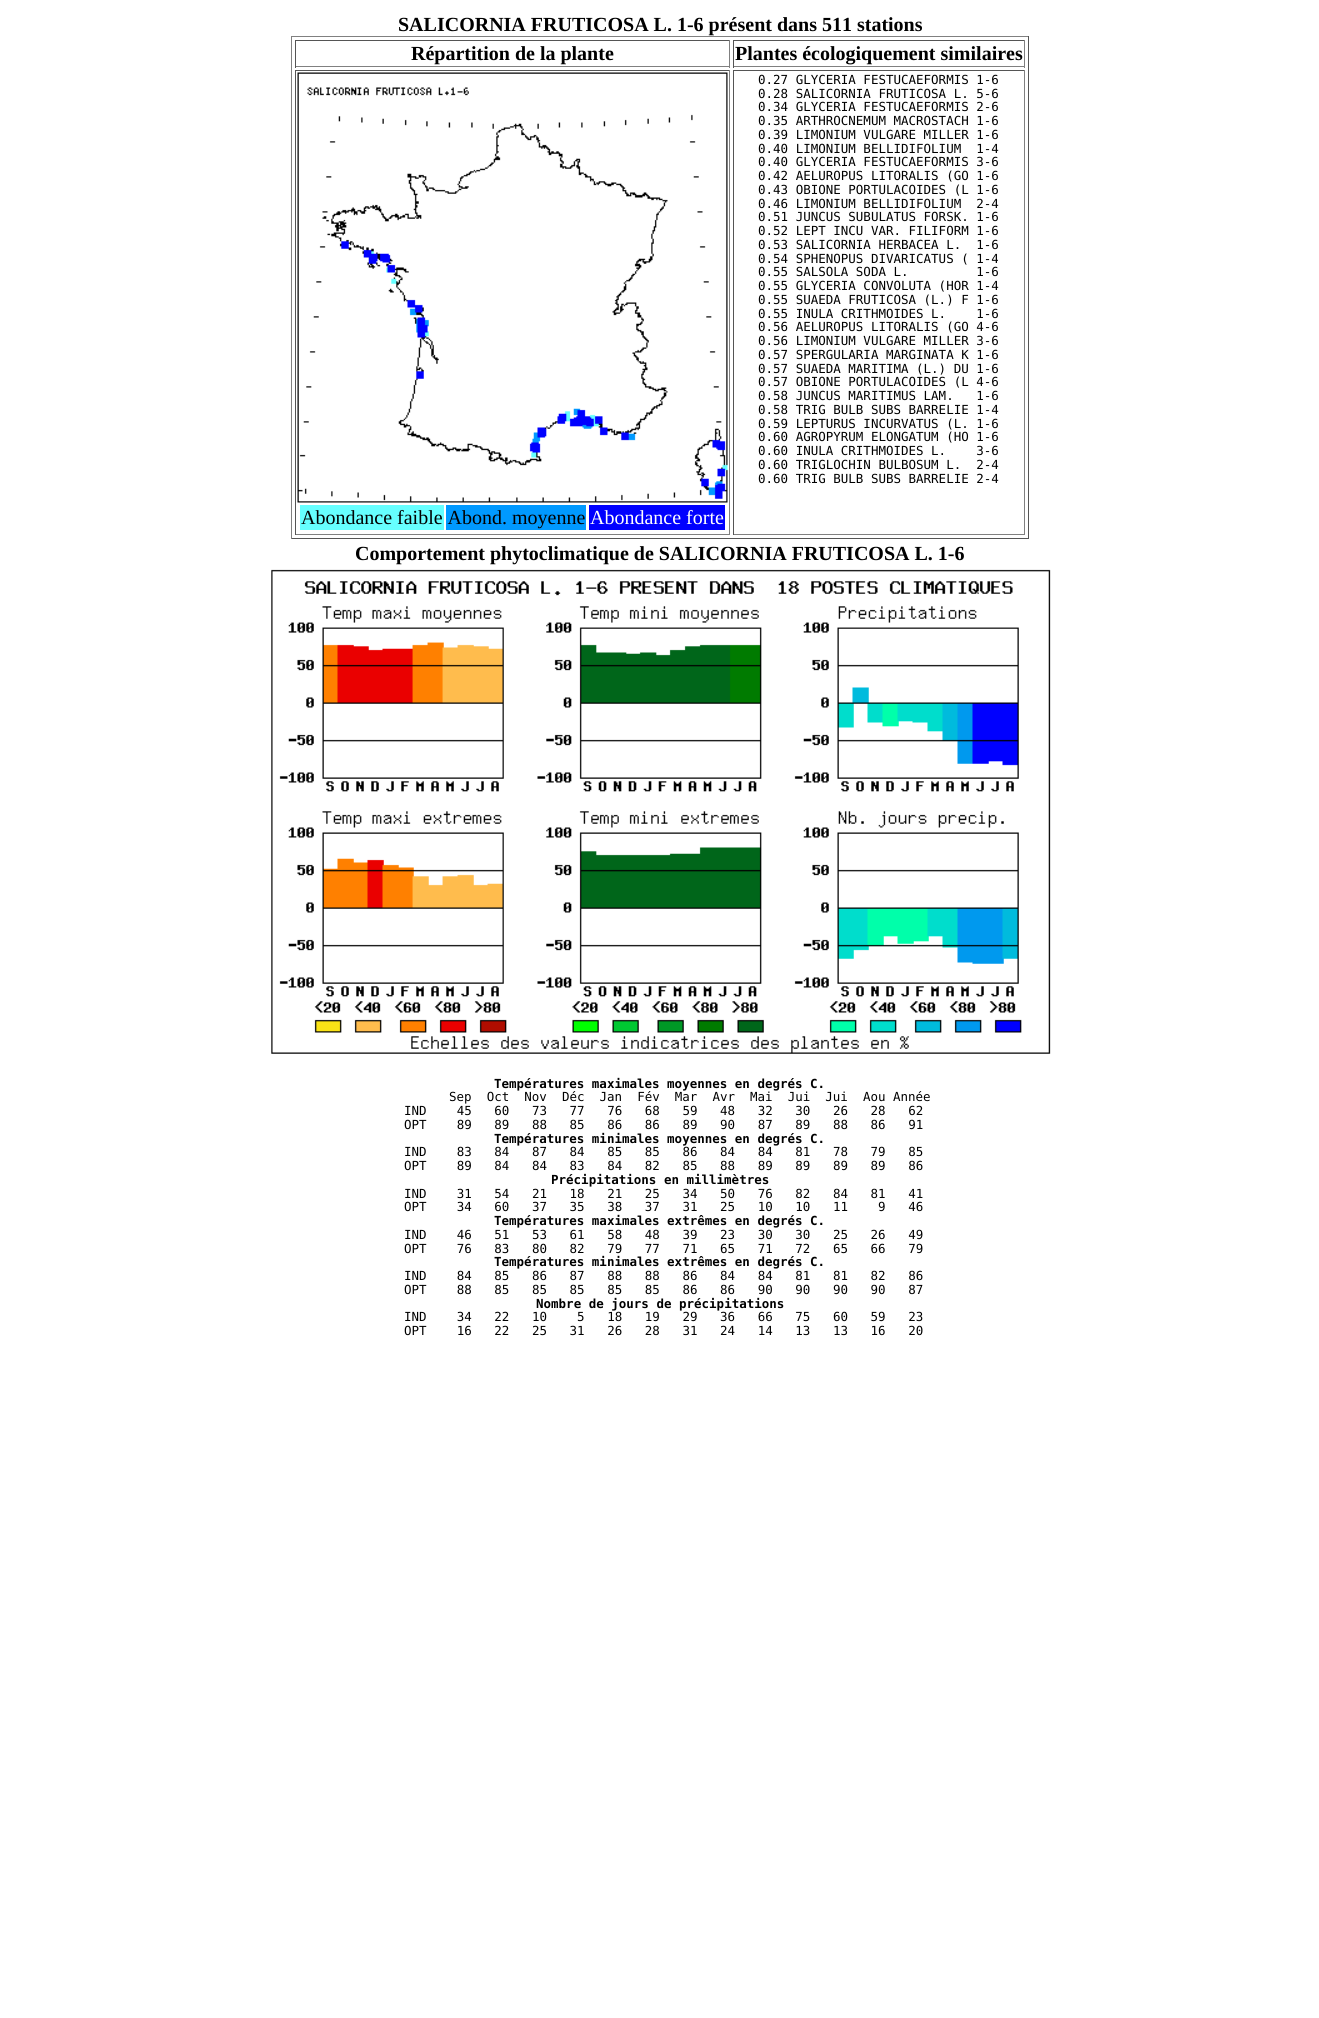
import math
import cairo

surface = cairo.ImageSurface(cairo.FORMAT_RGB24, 1319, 2018)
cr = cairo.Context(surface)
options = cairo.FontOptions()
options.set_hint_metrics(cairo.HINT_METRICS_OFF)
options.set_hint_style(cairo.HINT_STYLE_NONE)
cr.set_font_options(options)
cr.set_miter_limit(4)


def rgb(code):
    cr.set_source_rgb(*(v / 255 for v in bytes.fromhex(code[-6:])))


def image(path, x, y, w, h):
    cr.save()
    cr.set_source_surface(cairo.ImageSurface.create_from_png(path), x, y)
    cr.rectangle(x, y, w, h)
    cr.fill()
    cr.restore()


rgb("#ffffff")
cr.paint()
for x, y, w, h, color in [
    (291, 36, 738, 1, "#808080"),
    (1028, 36, 1, 503, "#555555"),
    (291, 538, 738, 1, "#555555"),
    (291, 36, 1, 503, "#808080"),
    (295, 40, 435, 1, "#555555"),
    (729, 40, 1, 28, "#808080"),
    (295, 66, 435, 1, "#808080"),
    (295, 40, 1, 28, "#555555"),
    (733, 40, 292, 1, "#555555"),
    (1024, 40, 1, 28, "#808080"),
    (733, 66, 292, 1, "#808080"),
    (733, 40, 1, 28, "#555555"),
    (733, 70, 292, 1, "#555555"),
    (1024, 70, 1, 465, "#808080"),
    (733, 534, 292, 1, "#808080"),
    (733, 70, 1, 465, "#555555"),
    (295, 70, 435, 1, "#555555"),
    (729, 70, 1, 465, "#808080"),
    (295, 534, 435, 1, "#808080"),
    (295, 70, 1, 465, "#555555"),
]:
    rgb(color)
    cr.rectangle(x, y, w, h)
    cr.fill()
image("img/1.png", 297, 72, 431, 431)
for x, y, w, h, color in [
    (446, 505, 140, 25, "#0099ff"),
    (300, 505, 144, 25, "#66ffff"),
    (589, 505, 136, 25, "#0000ff"),
]:
    rgb(color)
    cr.rectangle(x, y, w, h)
    cr.fill()
image("img/2.png", 271, 569, 780, 485)
cr.select_font_face("Liberation Serif", cairo.FONT_SLANT_NORMAL, cairo.FONT_WEIGHT_BOLD)
cr.set_font_size(20)
rgb("#000000")
for x, y, s in [
    (398, 31, "SALICORNIA FRUTICOSA L. 1-6 présent dans 511 stations"),
    (411, 60, "Répartition de la plante"),
    (735, 60, "Plantes écologiquement similaires"),
]:
    cr.move_to(x, y)
    cr.show_text(s)
cr.select_font_face("DejaVu Sans Mono")
cr.set_font_size(12.5)
for x, y, s in [
    (758, 84, "0.27 GLYCERIA FESTUCAEFORMIS 1-6"),
    (758, 98, "0.28 SALICORNIA FRUTICOSA L. 5-6"),
    (758, 111, "0.34 GLYCERIA FESTUCAEFORMIS 2-6"),
    (758, 125, "0.35 ARTHROCNEMUM MACROSTACH 1-6"),
    (758, 139, "0.39 LIMONIUM VULGARE MILLER 1-6"),
    (758, 153, "0.40 LIMONIUM BELLIDIFOLIUM  1-4"),
    (758, 166, "0.40 GLYCERIA FESTUCAEFORMIS 3-6"),
    (758, 180, "0.42 AELUROPUS LITORALIS (GO 1-6"),
    (758, 194, "0.43 OBIONE PORTULACOIDES (L 1-6"),
    (758, 208, "0.46 LIMONIUM BELLIDIFOLIUM  2-4"),
    (758, 221, "0.51 JUNCUS SUBULATUS FORSK. 1-6"),
    (758, 235, "0.52 LEPT INCU VAR. FILIFORM 1-6"),
    (758, 249, "0.53 SALICORNIA HERBACEA L.  1-6"),
    (758, 263, "0.54 SPHENOPUS DIVARICATUS ( 1-4"),
    (758, 276, "0.55 SALSOLA SODA L.         1-6"),
    (758, 290, "0.55 GLYCERIA CONVOLUTA (HOR 1-4"),
    (758, 304, "0.55 SUAEDA FRUTICOSA (L.) F 1-6"),
    (758, 318, "0.55 INULA CRITHMOIDES L.    1-6"),
    (758, 331, "0.56 AELUROPUS LITORALIS (GO 4-6"),
    (758, 345, "0.56 LIMONIUM VULGARE MILLER 3-6"),
    (758, 359, "0.57 SPERGULARIA MARGINATA K 1-6"),
    (758, 373, "0.57 SUAEDA MARITIMA (L.) DU 1-6"),
    (758, 386, "0.57 OBIONE PORTULACOIDES (L 4-6"),
    (758, 400, "0.58 JUNCUS MARITIMUS LAM.   1-6"),
    (758, 414, "0.58 TRIG BULB SUBS BARRELIE 1-4"),
    (758, 428, "0.59 LEPTURUS INCURVATUS (L. 1-6"),
    (758, 441, "0.60 AGROPYRUM ELONGATUM (HO 1-6"),
    (758, 455, "0.60 INULA CRITHMOIDES L.    3-6"),
    (758, 469, "0.60 TRIGLOCHIN BULBOSUM L.  2-4"),
    (758, 483, "0.60 TRIG BULB SUBS BARRELIE 2-4"),
]:
    cr.move_to(x, y)
    cr.show_text(s)
cr.select_font_face("Liberation Serif")
cr.set_font_size(20)
cr.move_to(301, 524)
cr.show_text("Abondance faible Abond. moyenne")
rgb("#ffffff")
cr.move_to(590, 524)
cr.show_text("Abondance forte")
cr.select_font_face("Liberation Serif", cairo.FONT_SLANT_NORMAL, cairo.FONT_WEIGHT_BOLD)
rgb("#000000")
cr.move_to(355, 560)
cr.show_text("Comportement phytoclimatique de SALICORNIA FRUTICOSA L. 1-6")
cr.select_font_face("DejaVu Sans Mono", cairo.FONT_SLANT_NORMAL, cairo.FONT_WEIGHT_BOLD)
cr.set_font_size(12.5)
cr.move_to(494, 1088)
cr.show_text("Températures maximales moyennes en degrés C.")
cr.select_font_face("DejaVu Sans Mono")
for x, y, s in [
    (449, 1101, "Sep  Oct  Nov  Déc  Jan  Fév  Mar  Avr  Mai  Jui  Jui  Aou Année"),
    (404, 1115, "IND    45   60   73   77   76   68   59   48   32   30   26   28   62"),
    (404, 1129, "OPT    89   89   88   85   86   86   89   90   87   89   88   86   91"),
]:
    cr.move_to(x, y)
    cr.show_text(s)
cr.select_font_face("DejaVu Sans Mono", cairo.FONT_SLANT_NORMAL, cairo.FONT_WEIGHT_BOLD)
cr.move_to(494, 1143)
cr.show_text("Températures minimales moyennes en degrés C.")
cr.select_font_face("DejaVu Sans Mono")
cr.move_to(404, 1156)
cr.show_text("IND    83   84   87   84   85   85   86   84   84   81   78   79   85")
cr.move_to(404, 1170)
cr.show_text("OPT    89   84   84   83   84   82   85   88   89   89   89   89   86")
cr.select_font_face("DejaVu Sans Mono", cairo.FONT_SLANT_NORMAL, cairo.FONT_WEIGHT_BOLD)
cr.move_to(551, 1184)
cr.show_text("Précipitations en millimètres")
cr.select_font_face("DejaVu Sans Mono")
cr.move_to(404, 1198)
cr.show_text("IND    31   54   21   18   21   25   34   50   76   82   84   81   41")
cr.move_to(404, 1211)
cr.show_text("OPT    34   60   37   35   38   37   31   25   10   10   11    9   46")
cr.select_font_face("DejaVu Sans Mono", cairo.FONT_SLANT_NORMAL, cairo.FONT_WEIGHT_BOLD)
cr.move_to(494, 1225)
cr.show_text("Températures maximales extrêmes en degrés C.")
cr.select_font_face("DejaVu Sans Mono")
cr.move_to(404, 1239)
cr.show_text("IND    46   51   53   61   58   48   39   23   30   30   25   26   49")
cr.move_to(404, 1253)
cr.show_text("OPT    76   83   80   82   79   77   71   65   71   72   65   66   79")
cr.select_font_face("DejaVu Sans Mono", cairo.FONT_SLANT_NORMAL, cairo.FONT_WEIGHT_BOLD)
cr.move_to(494, 1266)
cr.show_text("Températures minimales extrêmes en degrés C.")
cr.select_font_face("DejaVu Sans Mono")
cr.move_to(404, 1280)
cr.show_text("IND    84   85   86   87   88   88   86   84   84   81   81   82   86")
cr.move_to(404, 1294)
cr.show_text("OPT    88   85   85   85   85   85   86   86   90   90   90   90   87")
cr.select_font_face("DejaVu Sans Mono", cairo.FONT_SLANT_NORMAL, cairo.FONT_WEIGHT_BOLD)
cr.move_to(536, 1308)
cr.show_text("Nombre de jours de précipitations")
cr.select_font_face("DejaVu Sans Mono")
cr.move_to(404, 1321)
cr.show_text("IND    34   22   10    5   18   19   29   36   66   75   60   59   23")
cr.move_to(404, 1335)
cr.show_text("OPT    16   22   25   31   26   28   31   24   14   13   13   16   20")
surface.write_to_png("page.png")
